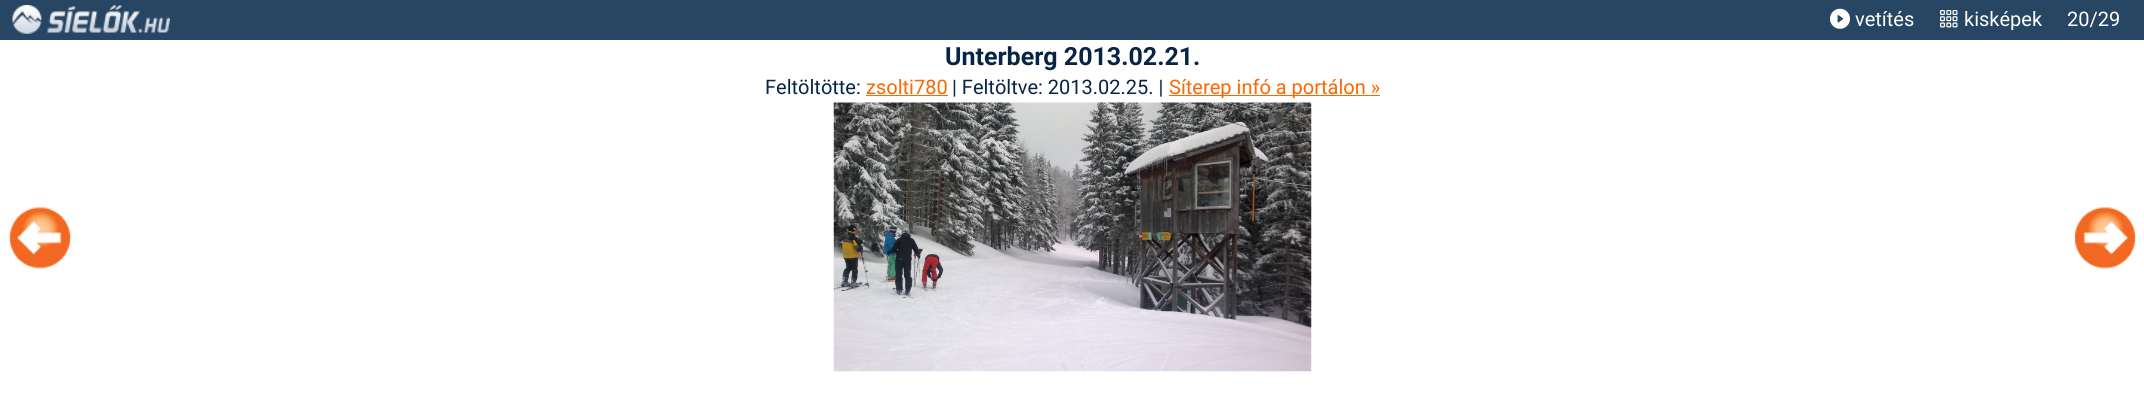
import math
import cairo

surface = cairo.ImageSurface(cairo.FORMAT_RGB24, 2144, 403)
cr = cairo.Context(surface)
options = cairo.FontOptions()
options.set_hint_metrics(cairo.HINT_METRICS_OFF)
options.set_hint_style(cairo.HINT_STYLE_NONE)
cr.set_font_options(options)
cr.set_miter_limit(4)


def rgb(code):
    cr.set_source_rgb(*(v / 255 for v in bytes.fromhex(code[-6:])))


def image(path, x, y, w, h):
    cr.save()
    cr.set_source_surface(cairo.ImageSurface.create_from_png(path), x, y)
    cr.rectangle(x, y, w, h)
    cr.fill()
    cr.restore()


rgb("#ffffff")
cr.paint()
rgb("#274663")
cr.rectangle(0, 0, 2144, 40)
cr.fill()
image("img/1.png", 12, 5, 158, 29)
image("img/2.png", 1830, 8, 20, 21)
image("img/3.png", 1940, 10, 18, 18)
rgb("#ff6600")
cr.rectangle(866, 95, 82, 1)
cr.fill()
cr.rectangle(1169, 95, 211, 1)
cr.fill()
image("img/4.png", 9, 207, 62, 62)
image("img/5.png", 833, 102, 479, 270)
image("img/6.png", 2074, 207, 62, 62)
cr.select_font_face("Roboto")
cr.set_font_size(20)
rgb("#ffffff")
for x, y, s in [
    (1855, 26, "vetítés"),
    (1964, 26, "kisképek"),
    (2067, 26, "20/29"),
]:
    cr.move_to(x, y)
    cr.show_text(s)
cr.select_font_face("Roboto", cairo.FONT_SLANT_NORMAL, cairo.FONT_WEIGHT_BOLD)
cr.set_font_size(25)
rgb("#072445")
cr.move_to(945, 65)
cr.show_text("Unterberg 2013.02.21.")
cr.select_font_face("Roboto")
cr.set_font_size(20)
cr.move_to(765, 94)
cr.show_text("Feltöltötte:")
rgb("#ff6600")
cr.move_to(866, 94)
cr.show_text("zsolti780")
rgb("#072445")
cr.move_to(952, 94)
cr.show_text("| Feltöltve: 2013.02.25. |")
rgb("#ff6600")
cr.move_to(1169, 94)
cr.show_text("Síterep infó a portálon »")
surface.write_to_png("page.png")
